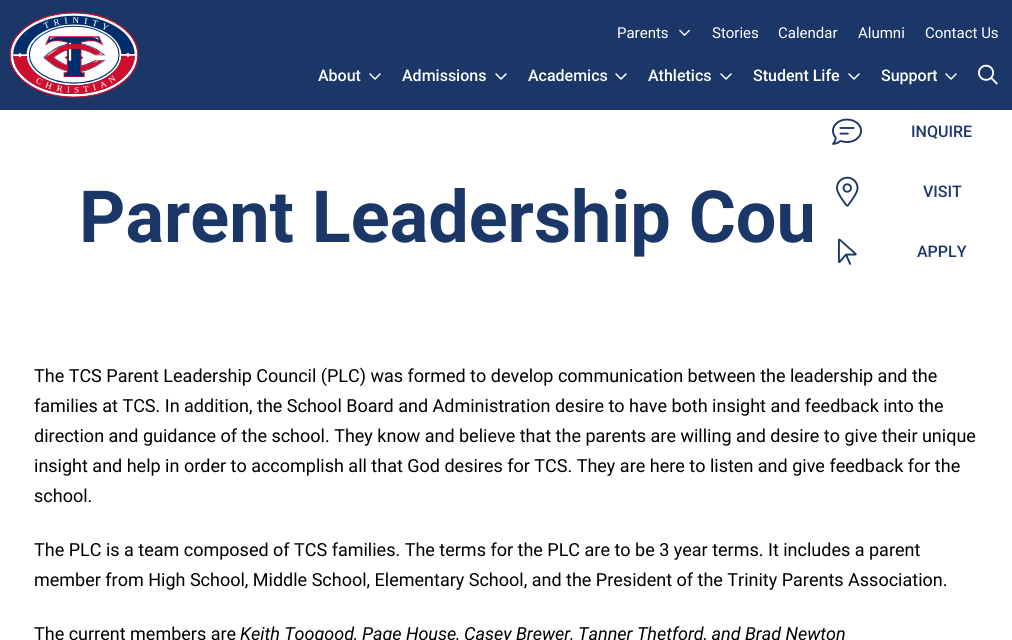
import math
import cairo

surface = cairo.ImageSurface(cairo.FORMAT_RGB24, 1012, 640)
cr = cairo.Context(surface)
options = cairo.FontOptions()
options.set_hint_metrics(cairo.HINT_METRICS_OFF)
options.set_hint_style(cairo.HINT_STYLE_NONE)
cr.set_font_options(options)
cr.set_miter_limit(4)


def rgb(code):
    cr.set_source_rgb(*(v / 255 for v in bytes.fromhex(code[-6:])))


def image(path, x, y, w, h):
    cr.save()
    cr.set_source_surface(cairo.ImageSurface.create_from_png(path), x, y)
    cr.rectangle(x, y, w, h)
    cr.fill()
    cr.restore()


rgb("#ffffff")
cr.paint()
rgb("#1a3768")
cr.rectangle(0, 0, 1012, 110)
cr.fill()
image("img/1.png", 9, 12, 130, 86)
image("img/2.png", 679, 29, 11, 7)
image("img/3.png", 369, 73, 12, 7)
image("img/3.png", 495, 73, 12, 7)
image("img/3.png", 615, 73, 12, 7)
image("img/3.png", 720, 73, 12, 7)
image("img/3.png", 848, 73, 12, 7)
image("img/3.png", 945, 73, 12, 7)
image("img/4.png", 978, 64, 20, 21)
image("img/5.png", 832, 118, 30, 27)
image("img/6.png", 836, 176, 23, 31)
image("img/7.png", 838, 238, 19, 27)
cr.select_font_face("Roboto")
cr.set_font_size(15)
rgb("#ffffff")
for x, y, s in [
    (617, 38, "Parents"),
    (712, 38, "Stories"),
    (778, 38, "Calendar"),
    (858, 38, "Alumni"),
    (925, 38, "Contact Us"),
]:
    cr.move_to(x, y)
    cr.show_text(s)
cr.select_font_face("Roboto Medium")
cr.set_font_size(16)
for x, y, s in [
    (318, 81, "About"),
    (402, 81, "Admissions"),
    (528, 81, "Academics"),
    (648, 81, "Athletics"),
    (753, 81, "Student Life"),
    (881, 81, "Support"),
]:
    cr.move_to(x, y)
    cr.show_text(s)
rgb("#1a3768")
for x, y, s in [
    (911, 137, "INQUIRE"),
    (923, 197, "VISIT"),
    (917, 257, "APPLY"),
]:
    cr.move_to(x, y)
    cr.show_text(s)
cr.select_font_face("Roboto", cairo.FONT_SLANT_NORMAL, cairo.FONT_WEIGHT_BOLD)
cr.set_font_size(72)
cr.move_to(79, 242)
cr.show_text("Parent Leadership Cou")
rgb("#ffffff")
cr.rectangle(812, 203, 2, 39)
cr.fill()
cr.select_font_face("Roboto")
cr.set_font_size(18)
rgb("#000000")
for x, y, s in [
    (34, 382, "The TCS Parent Leadership Council (PLC) was formed to develop communication between the leadership and the"),
    (34, 412, "families at TCS. In addition, the School Board and Administration desire to have both insight and feedback into the"),
    (34, 442, "direction and guidance of the school. They know and believe that the parents are willing and desire to give their unique"),
    (34, 472, "insight and help in order to accomplish all that God desires for TCS. They are here to listen and give feedback for the"),
    (34, 502, "school."),
    (34, 556, "The PLC is a team composed of TCS families. The terms for the PLC are to be 3 year terms. It includes a parent"),
    (34, 586, "member from High School, Middle School, Elementary School, and the President of the Trinity Parents Association."),
    (34, 640, "The current members are"),
]:
    cr.move_to(x, y)
    cr.show_text(s)
cr.select_font_face("Roboto", cairo.FONT_SLANT_ITALIC)
cr.move_to(240, 640)
cr.show_text("Keith Toogood, Page House, Casey Brewer, Tanner Thetford, and Brad Newton")
surface.write_to_png("page.png")
